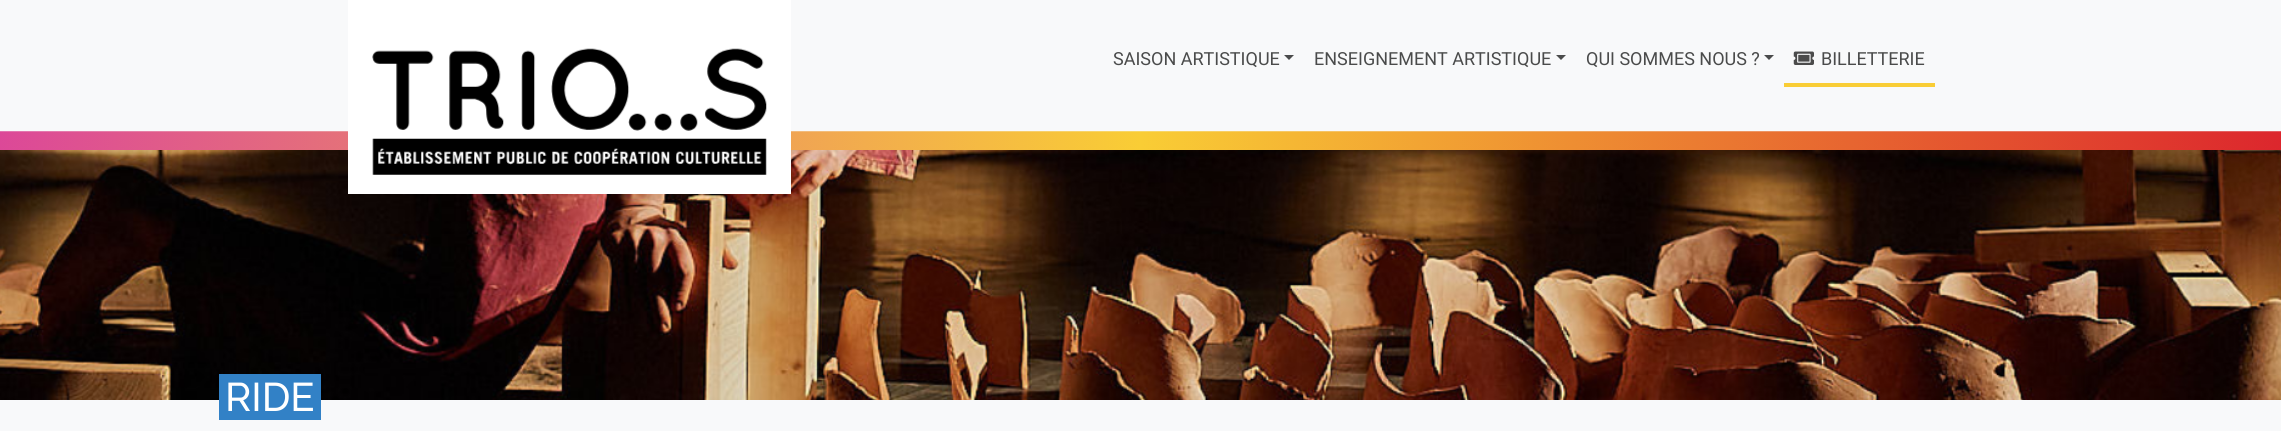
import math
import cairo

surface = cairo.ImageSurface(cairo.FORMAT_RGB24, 2281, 431)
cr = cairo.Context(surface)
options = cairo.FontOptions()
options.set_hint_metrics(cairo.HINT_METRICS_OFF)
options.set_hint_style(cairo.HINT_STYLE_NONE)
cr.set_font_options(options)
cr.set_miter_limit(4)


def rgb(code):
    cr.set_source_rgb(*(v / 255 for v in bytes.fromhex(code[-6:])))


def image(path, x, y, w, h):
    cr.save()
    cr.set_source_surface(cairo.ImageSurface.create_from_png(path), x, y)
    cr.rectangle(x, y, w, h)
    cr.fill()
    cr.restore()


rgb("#f8f9fa")
cr.paint()
image("img/3.png", 0, 131, 2281, 19)
image("img/4.png", 0, 150, 2281, 250)
rgb("#ffffff")
cr.rectangle(348, 0, 443, 194)
cr.fill()
image("img/1.png", 372, 48, 395, 127)
rgb("#4a4b4b")
cr.new_path()
cr.move_to(1284, 55)
cr.line_to(1294, 55)
cr.line_to(1289, 60)
cr.close_path()
cr.fill()
cr.new_path()
cr.move_to(1556, 55)
cr.line_to(1566, 55)
cr.line_to(1561, 60)
cr.close_path()
cr.fill()
cr.new_path()
cr.move_to(1764, 55)
cr.line_to(1774, 55)
cr.line_to(1769, 60)
cr.close_path()
cr.fill()
rgb("#f9cd35")
cr.rectangle(1784, 83, 151, 4)
cr.fill()
image("img/2.png", 1793, 51, 21, 14)
rgb("#3281c6")
cr.rectangle(219, 374, 102, 46)
cr.fill()
cr.select_font_face("Roboto")
cr.set_font_size(18)
rgb("#4a4b4b")
for x, y, s in [
    (1113, 65, "SAISON ARTISTIQUE"),
    (1314, 65, "ENSEIGNEMENT ARTISTIQUE"),
    (1586, 65, "QUI SOMMES NOUS ?"),
    (1821, 65, "BILLETTERIE"),
]:
    cr.move_to(x, y)
    cr.show_text(s)
cr.select_font_face("Raleway Medium")
cr.set_font_size(40)
rgb("#ffffff")
cr.move_to(225, 411)
cr.show_text("RIDE")
surface.write_to_png("page.png")
